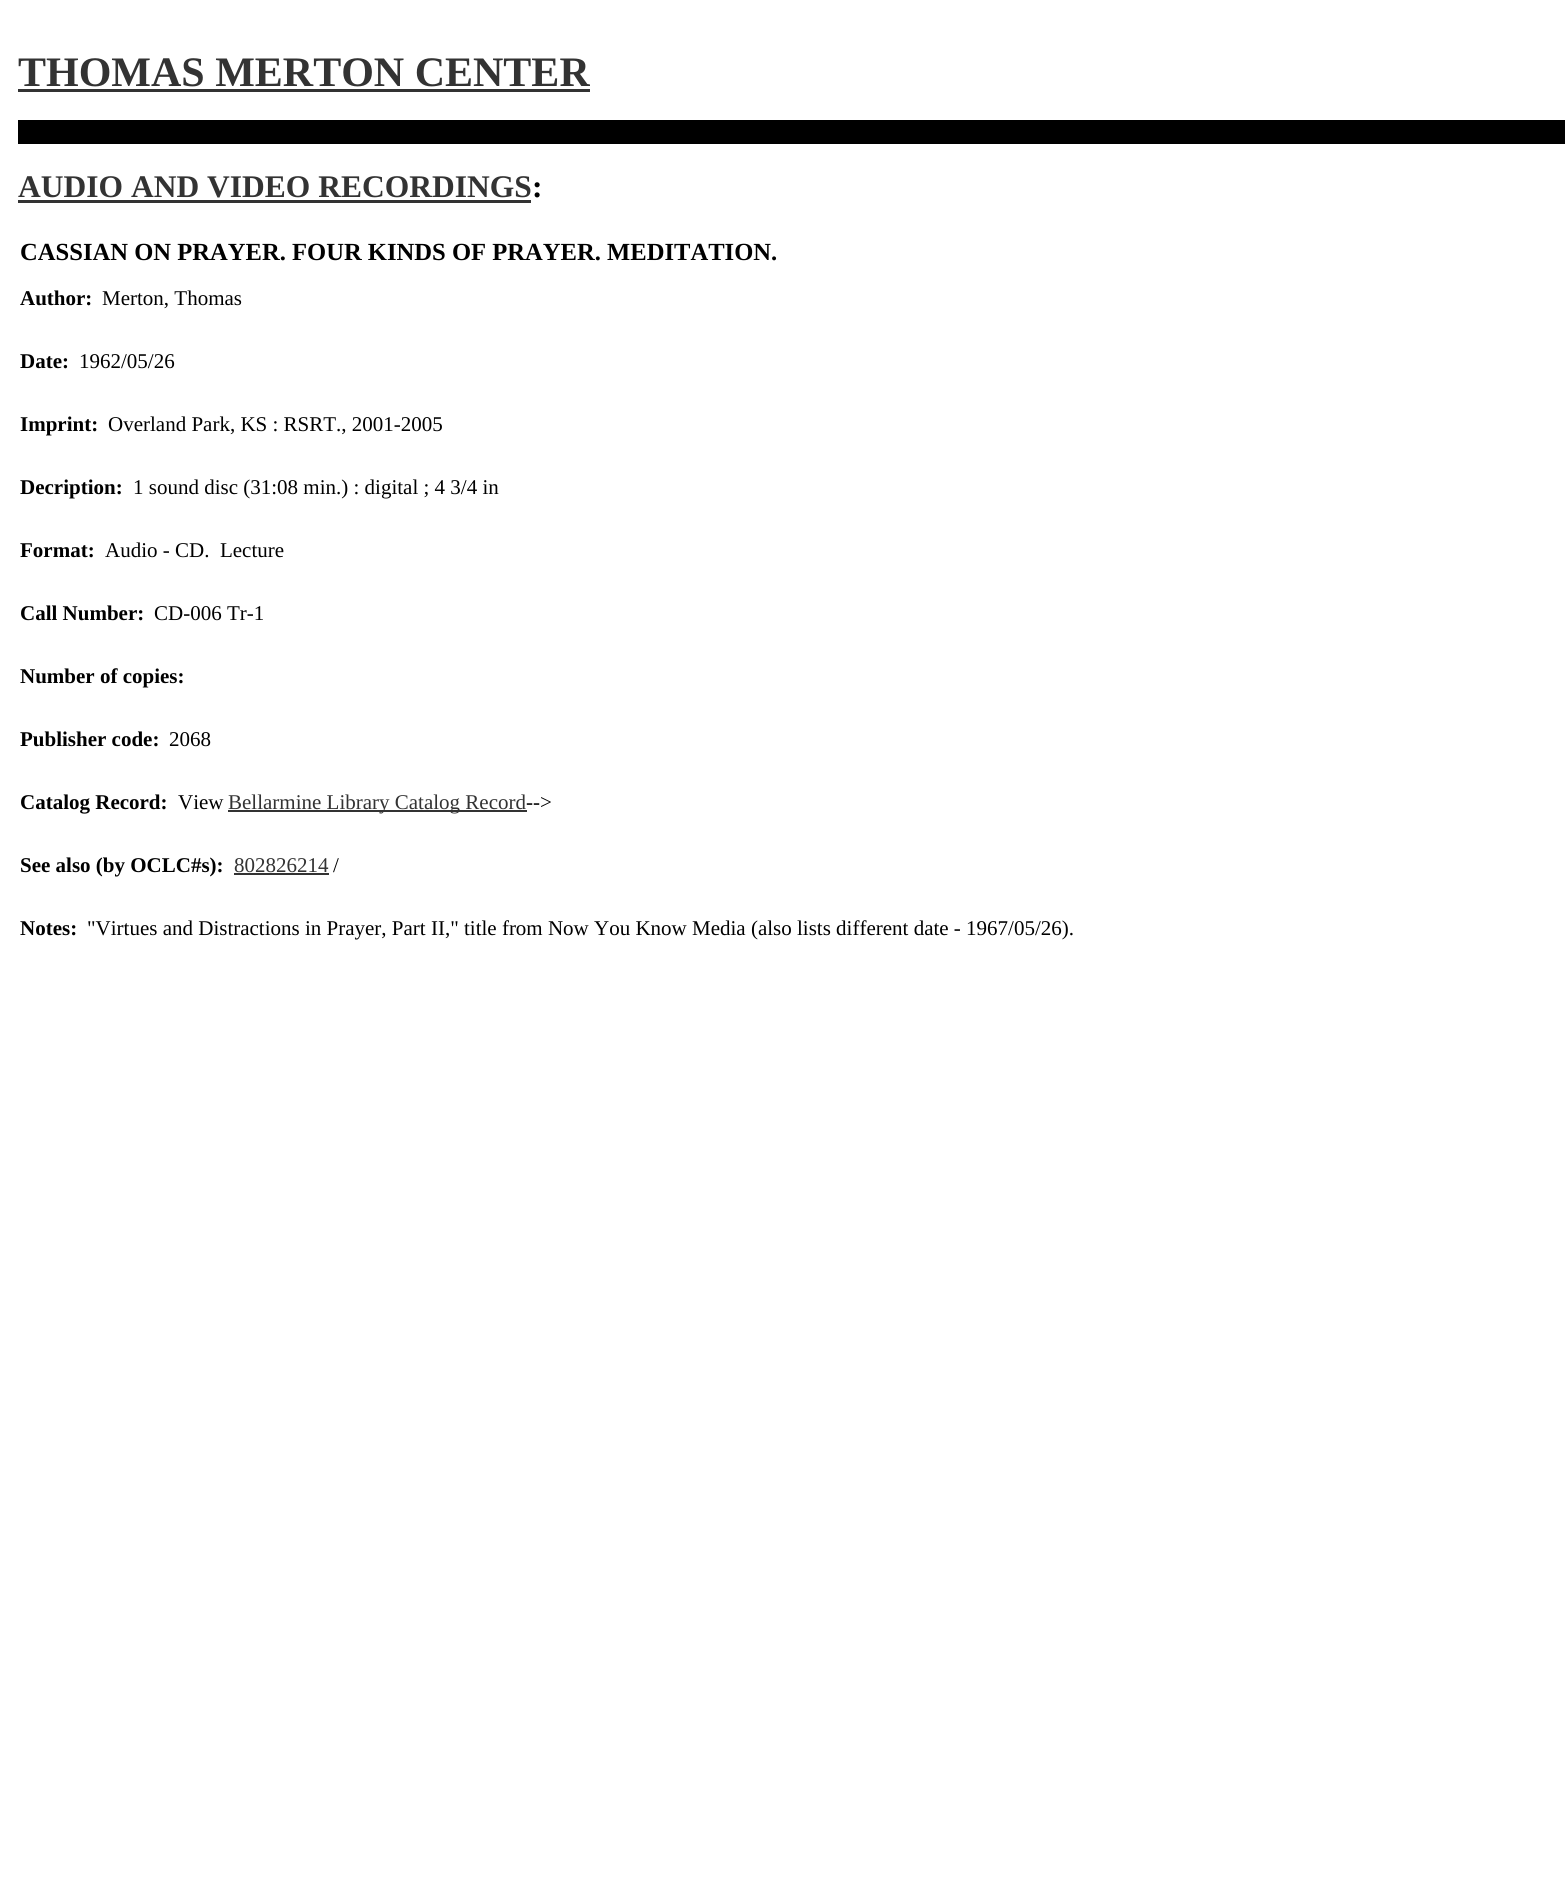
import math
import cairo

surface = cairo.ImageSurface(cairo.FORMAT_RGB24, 1565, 1879)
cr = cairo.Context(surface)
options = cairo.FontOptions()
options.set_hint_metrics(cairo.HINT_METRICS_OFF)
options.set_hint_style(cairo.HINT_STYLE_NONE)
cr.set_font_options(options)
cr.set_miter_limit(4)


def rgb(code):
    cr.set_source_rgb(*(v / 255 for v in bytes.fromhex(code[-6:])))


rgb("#ffffff")
cr.paint()
for x, y, w, h, color in [
    (18, 89, 572, 3, "#333333"),
    (18, 120, 1547, 24, "#000000"),
    (18, 200, 513, 3, "#333333"),
    (228, 810, 299, 2, "#333333"),
    (234, 873, 95, 2, "#333333"),
]:
    rgb(color)
    cr.rectangle(x, y, w, h)
    cr.fill()
cr.select_font_face("Liberation Serif", cairo.FONT_SLANT_NORMAL, cairo.FONT_WEIGHT_BOLD)
cr.set_font_size(42)
cr.move_to(18, 86)
cr.show_text("THOMAS MERTON CENTER")
cr.set_font_size(31.5)
cr.move_to(18, 197)
cr.show_text("AUDIO AND VIDEO RECORDINGS")
rgb("#000000")
cr.move_to(532, 197)
cr.show_text(":")
cr.set_font_size(24.6)
cr.move_to(20, 260)
cr.show_text("CASSIAN ON PRAYER. FOUR KINDS OF PRAYER. MEDITATION.")
cr.set_font_size(21)
cr.move_to(20, 305)
cr.show_text("Author:")
cr.select_font_face("Liberation Serif")
cr.move_to(102, 305)
cr.show_text("Merton, Thomas")
cr.select_font_face("Liberation Serif", cairo.FONT_SLANT_NORMAL, cairo.FONT_WEIGHT_BOLD)
cr.move_to(20, 368)
cr.show_text("Date:")
cr.select_font_face("Liberation Serif")
cr.move_to(79, 368)
cr.show_text("1962/05/26")
cr.select_font_face("Liberation Serif", cairo.FONT_SLANT_NORMAL, cairo.FONT_WEIGHT_BOLD)
cr.move_to(20, 431)
cr.show_text("Imprint:")
cr.select_font_face("Liberation Serif")
cr.move_to(108, 431)
cr.show_text("Overland Park, KS : RSRT., 2001-2005")
cr.select_font_face("Liberation Serif", cairo.FONT_SLANT_NORMAL, cairo.FONT_WEIGHT_BOLD)
cr.move_to(20, 494)
cr.show_text("Decription:")
cr.select_font_face("Liberation Serif")
cr.move_to(133, 494)
cr.show_text("1 sound disc (31:08 min.) : digital ; 4 3/4 in")
cr.select_font_face("Liberation Serif", cairo.FONT_SLANT_NORMAL, cairo.FONT_WEIGHT_BOLD)
cr.move_to(20, 557)
cr.show_text("Format:")
cr.select_font_face("Liberation Serif")
cr.move_to(105, 557)
cr.show_text("Audio - CD.  Lecture")
cr.select_font_face("Liberation Serif", cairo.FONT_SLANT_NORMAL, cairo.FONT_WEIGHT_BOLD)
cr.move_to(20, 620)
cr.show_text("Call Number:")
cr.select_font_face("Liberation Serif")
cr.move_to(154, 620)
cr.show_text("CD-006 Tr-1")
cr.select_font_face("Liberation Serif", cairo.FONT_SLANT_NORMAL, cairo.FONT_WEIGHT_BOLD)
cr.move_to(20, 683)
cr.show_text("Number of copies:")
cr.move_to(20, 746)
cr.show_text("Publisher code:")
cr.select_font_face("Liberation Serif")
cr.move_to(169, 746)
cr.show_text("2068")
cr.select_font_face("Liberation Serif", cairo.FONT_SLANT_NORMAL, cairo.FONT_WEIGHT_BOLD)
cr.move_to(20, 809)
cr.show_text("Catalog Record:")
cr.select_font_face("Liberation Serif")
cr.move_to(178, 809)
cr.show_text("View")
rgb("#333333")
cr.move_to(228, 809)
cr.show_text("Bellarmine Library Catalog Record")
rgb("#000000")
cr.move_to(526, 809)
cr.show_text("-->")
cr.select_font_face("Liberation Serif", cairo.FONT_SLANT_NORMAL, cairo.FONT_WEIGHT_BOLD)
cr.move_to(20, 872)
cr.show_text("See also (by OCLC#s):")
cr.select_font_face("Liberation Serif")
rgb("#333333")
cr.move_to(234, 872)
cr.show_text("802826214")
rgb("#000000")
cr.move_to(333, 872)
cr.show_text("/")
cr.select_font_face("Liberation Serif", cairo.FONT_SLANT_NORMAL, cairo.FONT_WEIGHT_BOLD)
cr.move_to(20, 935)
cr.show_text("Notes:")
cr.select_font_face("Liberation Serif")
cr.move_to(87, 935)
cr.show_text("\"Virtues and Distractions in Prayer, Part II,\" title from Now You Know Media (also lists different date - 1967/05/26).")
surface.write_to_png("page.png")
